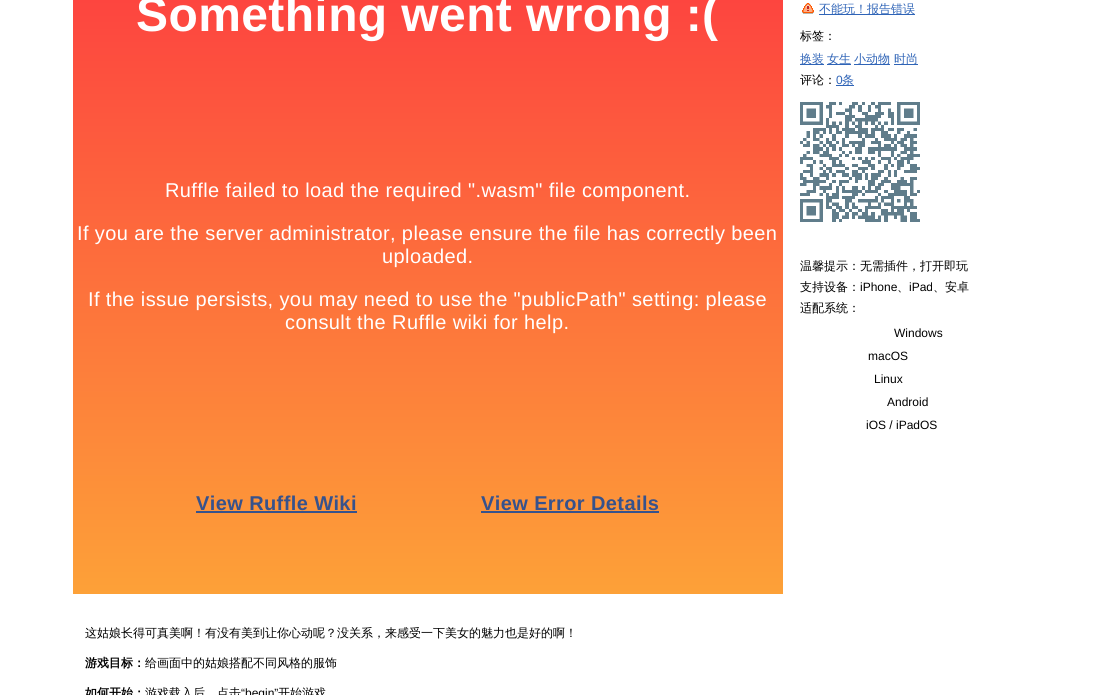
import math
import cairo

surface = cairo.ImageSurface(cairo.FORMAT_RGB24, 1097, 695)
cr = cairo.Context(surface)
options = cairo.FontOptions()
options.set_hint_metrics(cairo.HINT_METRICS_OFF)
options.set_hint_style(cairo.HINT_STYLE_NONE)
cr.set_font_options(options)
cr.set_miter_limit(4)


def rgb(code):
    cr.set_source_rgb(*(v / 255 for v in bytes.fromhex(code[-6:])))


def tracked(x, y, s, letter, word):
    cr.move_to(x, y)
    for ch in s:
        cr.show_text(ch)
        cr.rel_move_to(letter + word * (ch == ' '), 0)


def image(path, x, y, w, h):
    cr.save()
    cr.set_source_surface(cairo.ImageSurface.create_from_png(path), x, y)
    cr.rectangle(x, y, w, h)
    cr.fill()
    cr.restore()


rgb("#ffffff")
cr.paint()
gradient = cairo.LinearGradient(428, -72, 428, 594)
gradient.add_color_stop_rgba(0, 0.992, 0.227, 0.251, 1)
gradient.add_color_stop_rgba(1, 0.992, 0.631, 0.22, 1)
cr.set_source(gradient)
cr.rectangle(73, 0, 710, 594)
cr.fill()
rgb("#37528c")
cr.rectangle(196, 511, 161, 2)
cr.fill()
cr.rectangle(481, 511, 178, 2)
cr.fill()
image("img/1.png", 802, 3, 12, 11)
for x, y, w, h, color in [
    (819, 14, 96, 1, "#2f64b7"),
    (800, 64, 24, 1, "#2f64b7"),
    (827, 64, 24, 1, "#2f64b7"),
    (854, 64, 36, 1, "#2f64b7"),
    (894, 64, 24, 1, "#2f64b7"),
    (836, 85, 18, 1, "#2f64b7"),
]:
    rgb(color)
    cr.rectangle(x, y, w, h)
    cr.fill()
image("img/2.png", 800, 102, 120, 120)
cr.select_font_face("Liberation Sans", cairo.FONT_SLANT_NORMAL, cairo.FONT_WEIGHT_BOLD)
cr.set_font_size(48)
rgb("#ffffff")
tracked(136, 31, "Something went wrong :(", 0.4, 0)
cr.select_font_face("Liberation Sans")
cr.set_font_size(20)
for x, y, s in [
    (165, 197, "Ruffle failed to load the required \".wasm\" file component."),
    (77, 240, "If you are the server administrator, please ensure the file has correctly been"),
    (382, 263, "uploaded."),
    (88, 306, "If the issue persists, you may need to use the \"publicPath\" setting: please"),
    (285, 329, "consult the Ruffle wiki for help."),
]:
    tracked(x, y, s, 0.4, 0)
cr.select_font_face("Liberation Sans", cairo.FONT_SLANT_NORMAL, cairo.FONT_WEIGHT_BOLD)
rgb("#37528c")
tracked(196, 510, "View Ruffle Wiki", 0.4, 0)
tracked(481, 510, "View Error Details", 0.4, 0)
cr.select_font_face("WenQuanYi Zen Hei Medium")
cr.set_font_size(12)
rgb("#000000")
cr.move_to(85, 637)
cr.show_text("这姑娘长得可真美啊！有没有美到让你心动呢？没关系，来感受一下美女的魅力也是好的啊！")
cr.select_font_face("WenQuanYi Zen Hei", cairo.FONT_SLANT_NORMAL, cairo.FONT_WEIGHT_BOLD)
cr.move_to(85, 667)
cr.show_text("游戏目标：")
cr.select_font_face("WenQuanYi Zen Hei Medium")
cr.move_to(145, 667)
cr.show_text("给画面中的姑娘搭配不同风格的服饰")
cr.select_font_face("WenQuanYi Zen Hei", cairo.FONT_SLANT_NORMAL, cairo.FONT_WEIGHT_BOLD)
cr.move_to(85, 697)
cr.show_text("如何开始：")
cr.select_font_face("WenQuanYi Zen Hei Medium")
cr.move_to(145, 697)
cr.show_text("游戏载入后，点击")
cr.select_font_face("Liberation Sans")
cr.move_to(241, 697)
cr.show_text("“begin”")
cr.select_font_face("WenQuanYi Zen Hei Medium")
cr.move_to(278, 697)
cr.show_text("开始游戏")
rgb("#2f64b7")
cr.move_to(819, 13)
cr.show_text("不能玩！报告错误")
rgb("#000000")
cr.move_to(800, 40)
cr.show_text("标签：")
rgb("#2f64b7")
for x, y, s in [
    (800, 63, "换装"),
    (827, 63, "女生"),
    (854, 63, "小动物"),
    (894, 63, "时尚"),
]:
    cr.move_to(x, y)
    cr.show_text(s)
rgb("#000000")
cr.move_to(800, 84)
cr.show_text("评论：")
cr.select_font_face("Liberation Sans")
rgb("#2f64b7")
cr.move_to(836, 84)
cr.show_text("0")
cr.select_font_face("WenQuanYi Zen Hei Medium")
cr.move_to(842, 84)
cr.show_text("条")
rgb("#000000")
cr.move_to(800, 270)
cr.show_text("温馨提示：无需插件，打开即玩")
cr.move_to(800, 291)
cr.show_text("支持设备：")
cr.select_font_face("Liberation Sans")
cr.move_to(860, 291)
cr.show_text("iPhone")
cr.select_font_face("WenQuanYi Zen Hei Medium")
cr.move_to(897, 291)
cr.show_text("、")
cr.select_font_face("Liberation Sans")
cr.move_to(909, 291)
cr.show_text("iPad")
cr.select_font_face("WenQuanYi Zen Hei Medium")
cr.move_to(933, 291)
cr.show_text("、安卓")
cr.move_to(800, 312)
cr.show_text("适配系统：")
cr.select_font_face("Liberation Sans")
for x, y, s in [
    (894, 337, "Windows"),
    (868, 360, "macOS"),
    (874, 383, "Linux"),
    (887, 406, "Android"),
    (866, 429, "iOS / iPadOS"),
]:
    cr.move_to(x, y)
    cr.show_text(s)
surface.write_to_png("page.png")
